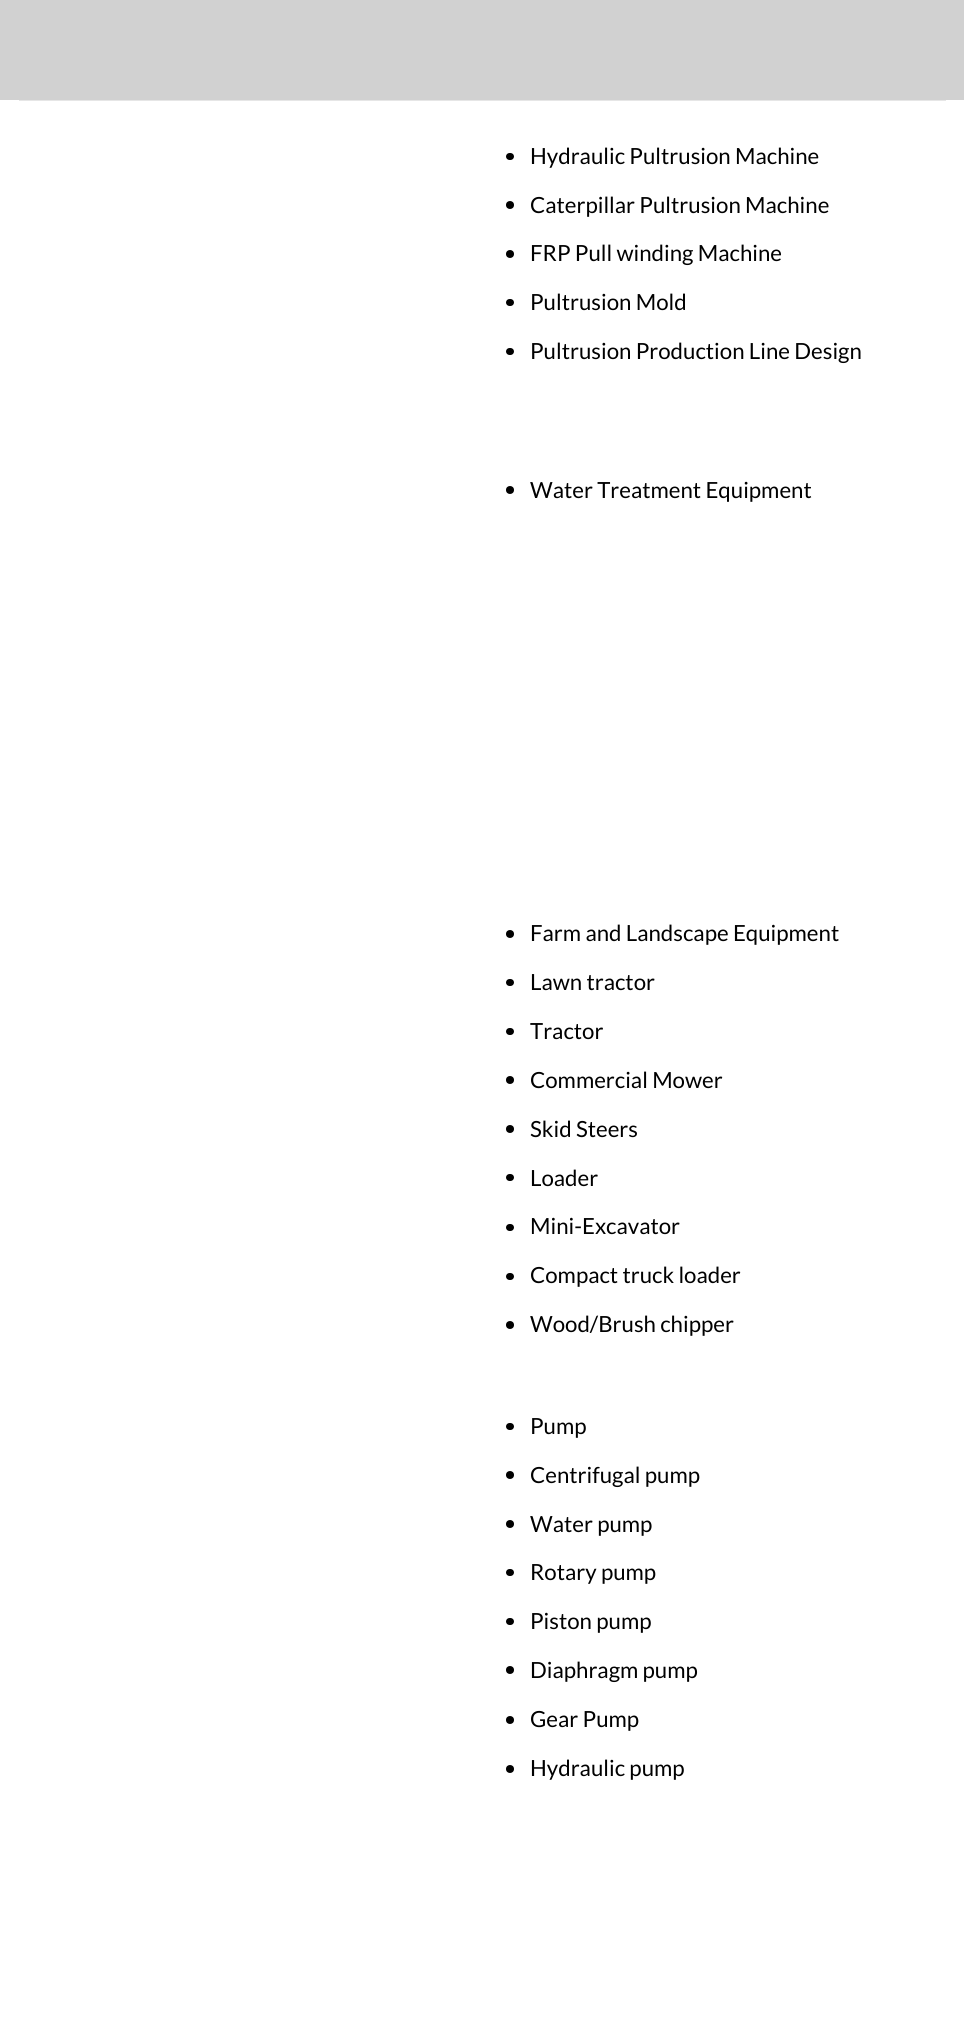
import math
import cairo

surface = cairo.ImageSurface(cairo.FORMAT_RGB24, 964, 2043)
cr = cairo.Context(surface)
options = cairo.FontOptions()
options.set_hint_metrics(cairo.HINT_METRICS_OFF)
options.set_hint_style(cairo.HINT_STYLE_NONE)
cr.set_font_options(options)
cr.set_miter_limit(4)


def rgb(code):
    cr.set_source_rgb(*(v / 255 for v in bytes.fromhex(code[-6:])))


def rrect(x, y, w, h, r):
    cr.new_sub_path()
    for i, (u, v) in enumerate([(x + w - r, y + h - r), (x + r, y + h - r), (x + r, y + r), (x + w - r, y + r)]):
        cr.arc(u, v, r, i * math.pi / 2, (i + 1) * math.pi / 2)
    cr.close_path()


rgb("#ffffff")
cr.paint()
rgb("#d1d1d1")
cr.rectangle(0, 0, 964, 100)
cr.fill()
rgb("#e6e6e6")
cr.rectangle(19, 100, 927, 1)
cr.fill()
rgb("#000000")
rrect(506, 153, 8, 7, 3.5)
cr.fill()
cr.arc(510, 205, 4, 0, 2 * math.pi)
cr.fill()
cr.arc(510, 254, 4, 0, 2 * math.pi)
cr.fill()
rrect(506, 299, 8, 7, 3.5)
cr.fill()
rrect(506, 348, 8, 7, 3.5)
cr.fill()
cr.arc(510, 490, 4, 0, 2 * math.pi)
cr.fill()
cr.arc(510, 934, 4, 0, 2 * math.pi)
cr.fill()
rrect(506, 979, 8, 7, 3.5)
cr.fill()
rrect(506, 1028, 8, 7, 3.5)
cr.fill()
cr.arc(510, 1080, 4, 0, 2 * math.pi)
cr.fill()
cr.arc(510, 1129, 4, 0, 2 * math.pi)
cr.fill()
rrect(506, 1174, 8, 7, 3.5)
cr.fill()
rrect(506, 1224, 8, 7, 3.5)
cr.fill()
rrect(506, 1273, 8, 7, 3.5)
cr.fill()
cr.arc(510, 1325, 4, 0, 2 * math.pi)
cr.fill()
rrect(506, 1423, 8, 7, 3.5)
cr.fill()
cr.arc(510, 1475, 4, 0, 2 * math.pi)
cr.fill()
cr.arc(510, 1524, 4, 0, 2 * math.pi)
cr.fill()
rrect(506, 1569, 8, 7, 3.5)
cr.fill()
rrect(506, 1618, 8, 7, 3.5)
cr.fill()
cr.arc(510, 1670, 4, 0, 2 * math.pi)
cr.fill()
cr.arc(510, 1720, 4, 0, 2 * math.pi)
cr.fill()
cr.arc(510, 1769, 4, 0, 2 * math.pi)
cr.fill()
cr.select_font_face("Lato")
cr.set_font_size(22.25)
for x, y, s in [
    (530, 164, "Hydraulic Pultrusion Machine"),
    (530, 213, "Caterpillar Pultrusion Machine"),
    (530, 261, "FRP Pull winding Machine"),
    (530, 310, "Pultrusion Mold"),
    (530, 359, "Pultrusion Production Line Design"),
    (530, 498, "Water Treatment Equipment"),
    (530, 941, "Farm and Landscape Equipment"),
    (530, 990, "Lawn tractor"),
    (530, 1039, "Tractor"),
    (530, 1088, "Commercial Mower"),
    (530, 1137, "Skid Steers"),
    (530, 1186, "Loader"),
    (530, 1234, "Mini-Excavator"),
    (530, 1283, "Compact truck loader"),
    (530, 1332, "Wood/Brush chipper"),
    (530, 1434, "Pump"),
    (530, 1483, "Centrifugal pump"),
    (530, 1532, "Water pump"),
    (530, 1580, "Rotary pump"),
    (530, 1629, "Piston pump"),
    (530, 1678, "Diaphragm pump"),
    (530, 1727, "Gear Pump"),
    (530, 1776, "Hydraulic pump"),
]:
    cr.move_to(x, y)
    cr.show_text(s)
surface.write_to_png("page.png")
